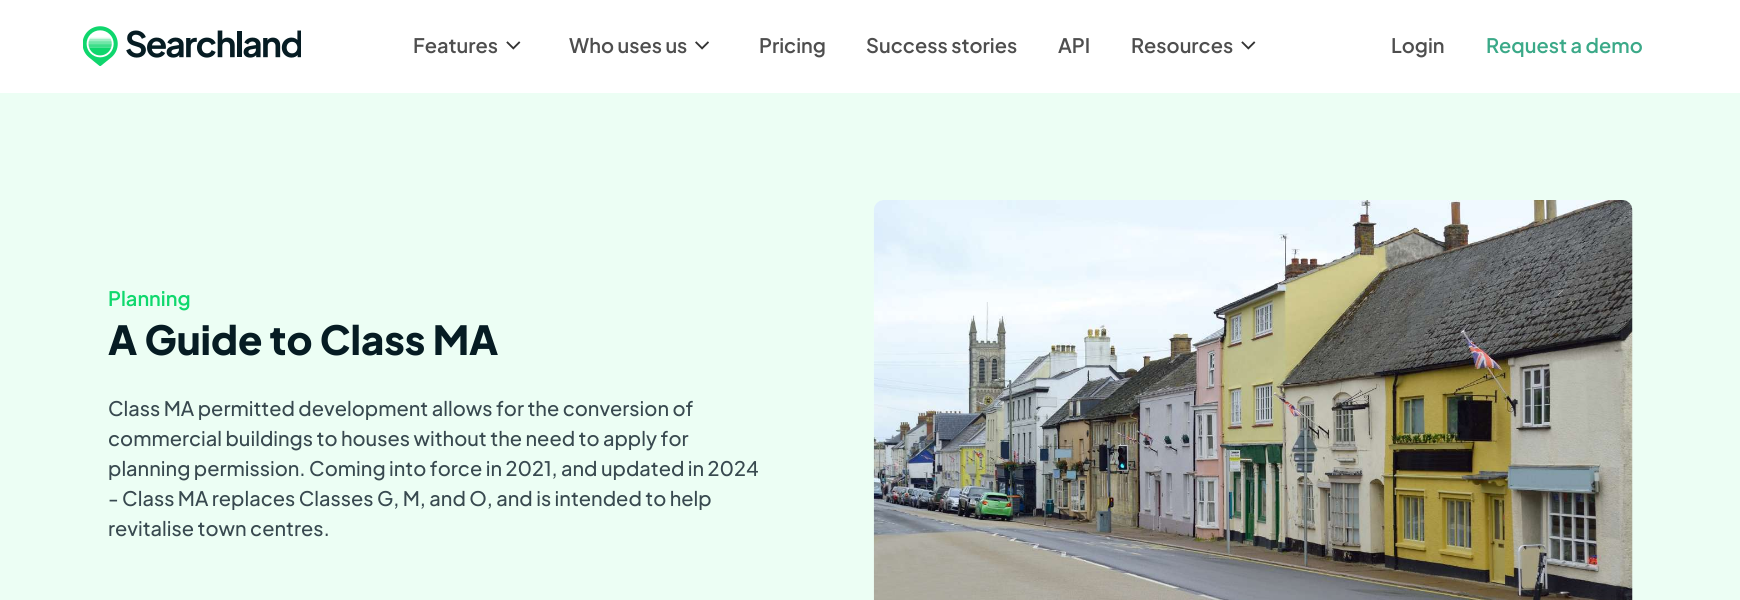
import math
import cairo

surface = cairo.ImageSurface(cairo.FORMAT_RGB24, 1740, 600)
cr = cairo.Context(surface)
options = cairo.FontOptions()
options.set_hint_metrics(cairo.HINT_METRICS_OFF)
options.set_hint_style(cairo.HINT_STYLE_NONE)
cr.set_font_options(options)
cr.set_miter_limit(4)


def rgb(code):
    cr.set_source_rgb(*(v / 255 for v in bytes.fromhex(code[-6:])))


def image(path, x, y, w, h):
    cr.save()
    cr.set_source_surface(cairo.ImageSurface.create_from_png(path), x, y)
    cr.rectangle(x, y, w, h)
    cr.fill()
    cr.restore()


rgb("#ecfef4")
cr.paint()
rgb("#ffffff")
cr.rectangle(0, 0, 1740, 93)
cr.fill()
image("img/1.png", 83, 26, 218, 40)
image("img/2.png", 506, 41, 15, 9)
image("img/3.png", 695, 41, 14, 9)
image("img/2.png", 1241, 41, 15, 9)
image("img/4.png", 873, 200, 760, 400)
cr.select_font_face("Plus Jakarta Sans SemiBold")
cr.set_font_size(20)
rgb("#4e4e4e")
for x, y, s in [
    (413, 53, "Features"),
    (569, 53, "Who uses us"),
    (759, 53, "Pricing"),
    (866, 53, "Success stories"),
    (1058, 53, "API"),
    (1131, 53, "Resources"),
    (1391, 53, "Login"),
]:
    cr.move_to(x, y)
    cr.show_text(s)
rgb("#3ba988")
cr.move_to(1486, 53)
cr.show_text("Request a demo")
rgb("#0fd86d")
cr.move_to(108, 306)
cr.show_text("Planning")
cr.select_font_face("Plus Jakarta Sans ExtraBold")
cr.set_font_size(40)
rgb("#061c23")
cr.move_to(108, 355)
cr.show_text("A Guide to Class MA")
cr.select_font_face("Plus Jakarta Sans Medium")
cr.set_font_size(20)
rgb("#38494f")
for x, y, s in [
    (108, 416, "Class MA permitted development allows for the conversion of"),
    (108, 446, "commercial buildings to houses without the need to apply for"),
    (108, 476, "planning permission. Coming into force in 2021, and updated in 2024"),
    (108, 506, "- Class MA replaces Classes G, M, and O, and is intended to help"),
    (108, 536, "revitalise town centres."),
]:
    cr.move_to(x, y)
    cr.show_text(s)
surface.write_to_png("page.png")
